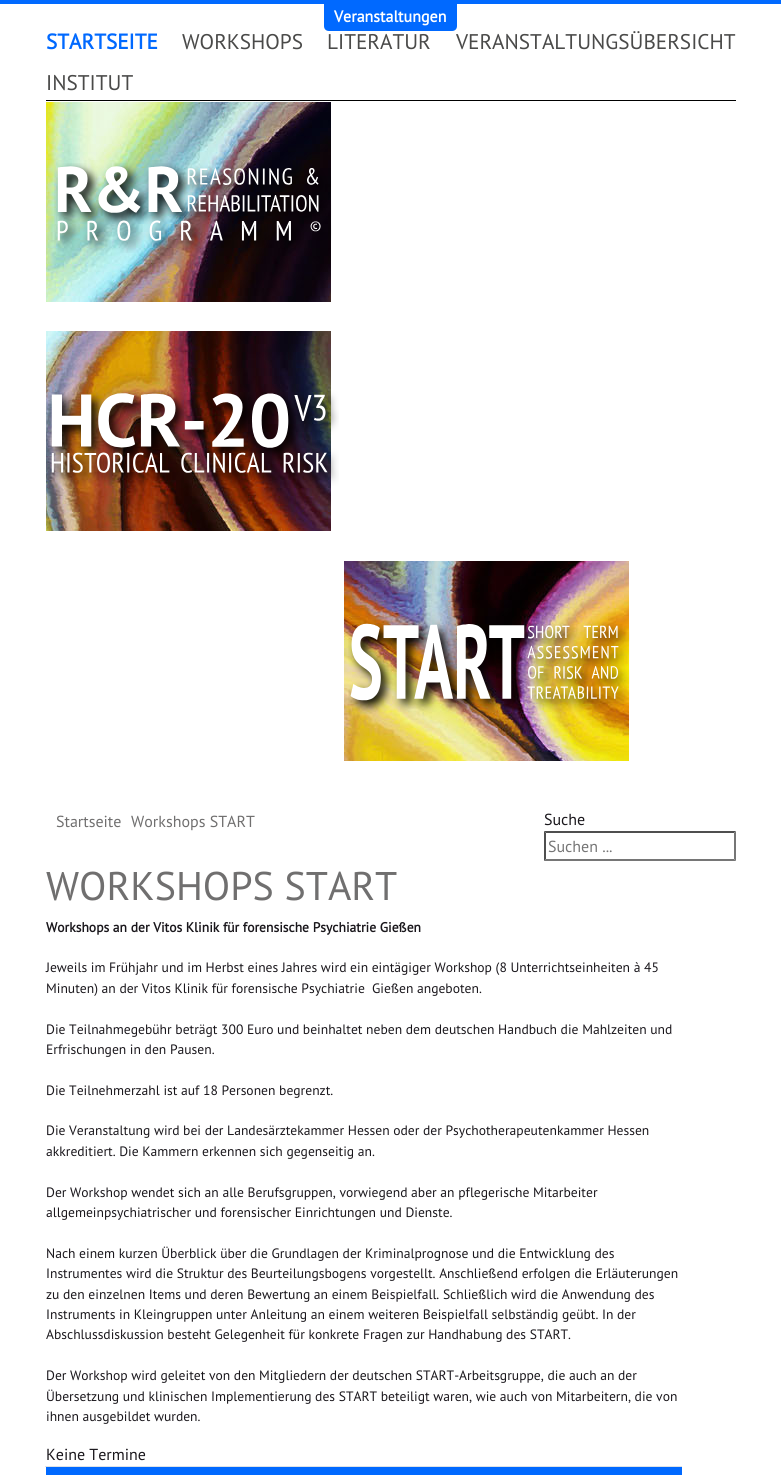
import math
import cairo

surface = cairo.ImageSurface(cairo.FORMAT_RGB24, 781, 1475)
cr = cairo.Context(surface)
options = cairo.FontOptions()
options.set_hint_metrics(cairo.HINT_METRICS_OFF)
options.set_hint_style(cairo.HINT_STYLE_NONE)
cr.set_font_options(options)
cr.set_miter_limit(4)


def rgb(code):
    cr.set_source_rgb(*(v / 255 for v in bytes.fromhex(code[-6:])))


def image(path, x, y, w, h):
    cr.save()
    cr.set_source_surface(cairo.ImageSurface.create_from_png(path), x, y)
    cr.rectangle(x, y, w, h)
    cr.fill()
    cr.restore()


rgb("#ffffff")
cr.paint()
rgb("#0069ff")
cr.rectangle(0, 0, 781, 4)
cr.fill()
cr.new_path()
cr.move_to(324, -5)
cr.line_to(457, -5)
cr.line_to(457, 26)
cr.curve_to(457, 29, 455, 31, 452, 31)
cr.line_to(329, 31)
cr.curve_to(326, 31, 324, 29, 324, 26)
cr.close_path()
cr.fill()
rgb("#000000")
cr.rectangle(46, 100, 690, 1)
cr.fill()
image("img/1.png", 46, 102, 285, 200)
image("img/2.png", 54, 163, 278, 90)
image("img/3.png", 46, 331, 285, 200)
image("img/4.png", 48, 390, 291, 96)
image("img/5.png", 344, 561, 285, 200)
image("img/6.png", 348, 620, 282, 94)
rgb("#4f4f4f")
cr.new_path()
cr.move_to(544, 831)
cr.line_to(736, 831)
cr.line_to(734, 833)
cr.line_to(546, 833)
cr.close_path()
cr.fill()
rgb("#767676")
cr.new_path()
cr.move_to(736, 831)
cr.line_to(736, 861)
cr.line_to(734, 859)
cr.line_to(734, 833)
cr.close_path()
cr.fill()
cr.new_path()
cr.move_to(736, 861)
cr.line_to(544, 861)
cr.line_to(546, 859)
cr.line_to(734, 859)
cr.close_path()
cr.fill()
rgb("#4f4f4f")
cr.new_path()
cr.move_to(544, 861)
cr.line_to(544, 831)
cr.line_to(546, 833)
cr.line_to(546, 859)
cr.close_path()
cr.fill()
rgb("#0069ff")
cr.rectangle(46, 1467, 636, 8)
cr.fill()
rgb("#dee2e6")
cr.rectangle(45, 1466, 637, 1)
cr.fill()
cr.select_font_face("PT Sans", cairo.FONT_SLANT_NORMAL, cairo.FONT_WEIGHT_BOLD)
cr.set_font_size(16)
rgb("#ffffff")
cr.move_to(334, 22)
cr.show_text("Veranstaltungen")
cr.set_font_size(21.25)
rgb("#0069ff")
cr.move_to(46, 49)
cr.show_text("STARTSEITE")
cr.select_font_face("PT Sans")
rgb("#4a4a49")
for x, y, s in [
    (182, 49, "WORKSHOPS"),
    (327, 49, "LITERATUR"),
    (456, 49, "VERANSTALTUNGSÜBERSICHT"),
    (46, 90, "INSTITUT"),
]:
    cr.move_to(x, y)
    cr.show_text(s)
cr.set_font_size(16)
rgb("#706f6f")
cr.move_to(56, 827)
cr.show_text("Startseite")
cr.move_to(131, 827)
cr.show_text("Workshops START")
rgb("#1a171c")
cr.move_to(544, 825)
cr.show_text("Suche")
rgb("#757575")
cr.move_to(548, 852)
cr.show_text("Suchen ...")
cr.set_font_size(40)
rgb("#706f6f")
cr.move_to(46, 900)
cr.show_text("WORKSHOPS START")
cr.select_font_face("PT Sans", cairo.FONT_SLANT_NORMAL, cairo.FONT_WEIGHT_BOLD)
cr.set_font_size(13.6)
rgb("#1a171c")
cr.move_to(46, 932)
cr.show_text("Workshops an der Vitos Klinik für forensische Psychiatrie Gießen")
cr.select_font_face("PT Sans")
for x, y, s in [
    (46, 972, "Jeweils im Frühjahr und im Herbst eines Jahres wird ein eintägiger Workshop (8 Unterrichtseinheiten à 45"),
    (46, 993, "Minuten) an der Vitos Klinik für forensische Psychiatrie  Gießen angeboten."),
    (46, 1034, "Die Teilnahmegebühr beträgt 300 Euro und beinhaltet neben dem deutschen Handbuch die Mahlzeiten und"),
    (46, 1054, "Erfrischungen in den Pausen."),
    (46, 1095, "Die Teilnehmerzahl ist auf 18 Personen begrenzt."),
    (46, 1135, "Die Veranstaltung wird bei der Landesärztekammer Hessen oder der Psychotherapeutenkammer Hessen"),
    (46, 1156, "akkreditiert. Die Kammern erkennen sich gegenseitig an."),
    (46, 1197, "Der Workshop wendet sich an alle Berufsgruppen, vorwiegend aber an pflegerische Mitarbeiter"),
    (46, 1217, "allgemeinpsychiatrischer und forensischer Einrichtungen und Dienste."),
    (46, 1258, "Nach einem kurzen Überblick über die Grundlagen der Kriminalprognose und die Entwicklung des"),
    (46, 1278, "Instrumentes wird die Struktur des Beurteilungsbogens vorgestellt. Anschließend erfolgen die Erläuterungen"),
    (46, 1299, "zu den einzelnen Items und deren Bewertung an einem Beispielfall. Schließlich wird die Anwendung des"),
    (46, 1319, "Instruments in Kleingruppen unter Anleitung an einem weiteren Beispielfall selbständig geübt. In der"),
    (46, 1339, "Abschlussdiskussion besteht Gelegenheit für konkrete Fragen zur Handhabung des START."),
    (46, 1380, "Der Workshop wird geleitet von den Mitgliedern der deutschen START-Arbeitsgruppe, die auch an der"),
    (46, 1401, "Übersetzung und klinischen Implementierung des START beteiligt waren, wie auch von Mitarbeitern, die von"),
    (46, 1421, "ihnen ausgebildet wurden."),
]:
    cr.move_to(x, y)
    cr.show_text(s)
cr.set_font_size(16)
cr.move_to(46, 1460)
cr.show_text("Keine Termine")
surface.write_to_png("page.png")
